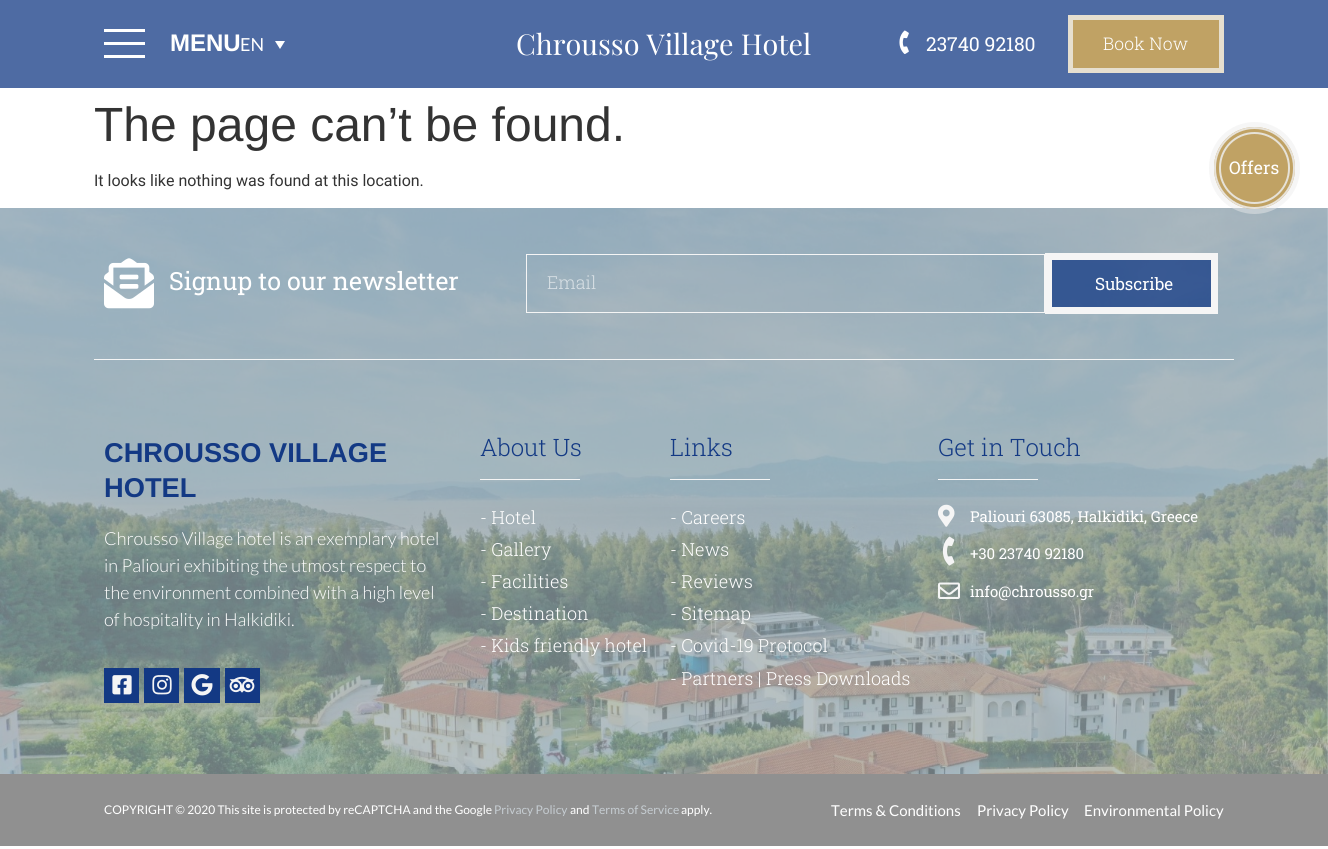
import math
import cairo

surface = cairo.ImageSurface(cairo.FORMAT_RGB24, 1328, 849)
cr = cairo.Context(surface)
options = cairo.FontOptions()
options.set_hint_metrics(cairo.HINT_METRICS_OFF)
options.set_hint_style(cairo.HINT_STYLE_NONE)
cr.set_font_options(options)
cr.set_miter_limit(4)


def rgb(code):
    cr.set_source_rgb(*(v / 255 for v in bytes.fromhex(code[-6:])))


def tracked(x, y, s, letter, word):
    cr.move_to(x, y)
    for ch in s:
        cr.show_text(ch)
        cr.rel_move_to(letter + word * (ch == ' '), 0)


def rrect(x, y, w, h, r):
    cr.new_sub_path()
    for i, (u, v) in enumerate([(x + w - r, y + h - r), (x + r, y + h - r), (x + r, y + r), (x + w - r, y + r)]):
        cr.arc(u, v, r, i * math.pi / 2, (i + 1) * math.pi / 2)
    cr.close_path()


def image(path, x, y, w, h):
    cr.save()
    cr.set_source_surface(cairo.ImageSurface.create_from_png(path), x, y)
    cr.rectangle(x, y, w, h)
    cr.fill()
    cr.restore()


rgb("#ffffff")
cr.paint()
rgb("#4e6ba3")
cr.rectangle(0, 0, 1328, 88)
cr.fill()
rgb("#ffffff")
cr.new_path()
cr.move_to(104, 29)
cr.line_to(104, 32)
cr.line_to(145, 32)
cr.line_to(145, 29)
cr.close_path()
cr.move_to(104, 45)
cr.line_to(145, 45)
cr.line_to(145, 42)
cr.line_to(104, 42)
cr.close_path()
cr.move_to(104, 58)
cr.line_to(145, 58)
cr.line_to(145, 55)
cr.line_to(104, 55)
cr.close_path()
cr.fill()
cr.new_path()
cr.move_to(275, 41)
cr.line_to(285, 41)
cr.line_to(280, 49)
cr.close_path()
cr.fill()
image("img/1.png", 899, 30, 10, 24)
rgb("#c0a264")
cr.rectangle(1070.5, 17.5, 151, 53)
cr.fill_preserve()
rgb("#e6dfcf")
cr.set_line_width(5)
cr.stroke()
image("img/2.png", 0, 208, 1328, 566)
rrect(1211.5, 124.5, 86, 87, 43)
cr.set_source_rgba(0.929, 0.929, 0.929, 0.47)
cr.stroke()
rgb("#c0a264")
rrect(1214, 127, 81, 82, 40.5)
cr.fill()
rrect(1215, 128, 79, 80, 39.5)
cr.set_source_rgba(0.929, 0.929, 0.929, 0.85)
cr.set_line_width(2)
cr.stroke()
rrect(1220, 133, 69, 70, 34.5)
rgb("#e6e2d8")
cr.stroke()
rgb("#f5f5f5")
cr.rectangle(94, 359, 1140, 1)
cr.fill()
image("img/3.png", 104, 258, 50, 51)
cr.rectangle(526.5, 254.5, 518, 58)
cr.set_line_width(1)
cr.stroke()
cr.set_source_rgba(0.075, 0.224, 0.518, 0.75)
cr.rectangle(1048.5, 256.5, 166, 54)
cr.fill_preserve()
rgb("#f5f5f5")
cr.set_line_width(7)
cr.stroke()
rgb("#133984")
cr.rectangle(104, 668, 35, 35)
cr.fill()
image("img/4.png", 112, 675, 20, 20)
cr.rectangle(144, 668, 35, 35)
cr.fill()
image("img/5.png", 152, 675, 20, 20)
cr.rectangle(184, 668, 36, 35)
cr.fill()
image("img/6.png", 191, 674, 22, 22)
cr.rectangle(225, 668, 35, 35)
cr.fill()
image("img/7.png", 229, 676, 26, 17)
for x, y, w, h, color in [
    (480, 479, 100, 1, "#f5f5f5"),
    (670, 479, 100, 1, "#f5f5f5"),
    (938, 479, 100, 1, "#f5f5f5"),
]:
    rgb(color)
    cr.rectangle(x, y, w, h)
    cr.fill()
image("img/8.png", 938, 504, 17, 23)
image("img/9.png", 942, 536, 13, 30)
image("img/10.png", 938, 582, 22, 17)
rgb("#909090")
cr.rectangle(0, 774, 1328, 72)
cr.fill()
cr.select_font_face("Liberation Sans", cairo.FONT_SLANT_NORMAL, cairo.FONT_WEIGHT_BOLD)
cr.set_font_size(24)
rgb("#ffffff")
cr.move_to(170, 51)
cr.show_text("MENU")
cr.select_font_face("Lato")
cr.set_font_size(18)
cr.move_to(240, 51)
cr.show_text("EN")
cr.select_font_face("Playfair Display")
cr.set_font_size(28.75)
cr.move_to(516, 55)
cr.show_text("Chrousso Village Hotel")
cr.select_font_face("Roboto Slab")
cr.set_font_size(19.25)
cr.move_to(926, 51)
cr.show_text("23740 92180")
cr.select_font_face("Roboto Slab Light")
cr.set_font_size(17.5)
tracked(1103, 50, "Book Now", 0.25, 0)
cr.select_font_face("Roboto Slab")
tracked(1229, 174, "Offers", 0.25, 0)
cr.select_font_face("Liberation Sans")
cr.set_font_size(48)
rgb("#333333")
cr.move_to(94, 141)
cr.show_text("The page can’t be found.")
cr.select_font_face("Roboto")
cr.set_font_size(16)
cr.move_to(94, 186)
cr.show_text("It looks like nothing was found at this location.")
cr.select_font_face("Roboto Slab")
cr.set_font_size(25)
rgb("#ffffff")
cr.move_to(169, 290)
cr.show_text("Signup to our newsletter")
cr.select_font_face("Roboto Slab Light")
cr.set_font_size(18)
rgb("#d8e0e5")
cr.move_to(547, 289)
cr.show_text("Email")
cr.select_font_face("Roboto Slab")
cr.set_font_size(17)
rgb("#ffffff")
cr.move_to(1095, 290)
cr.show_text("Subscribe")
cr.select_font_face("Liberation Sans", cairo.FONT_SLANT_NORMAL, cairo.FONT_WEIGHT_BOLD)
cr.set_font_size(27.25)
rgb("#133984")
cr.move_to(104, 462)
cr.show_text("CHROUSSO VILLAGE")
cr.move_to(104, 497)
cr.show_text("HOTEL")
cr.select_font_face("Lato Light")
cr.set_font_size(18)
rgb("#ffffff")
for x, y, s in [
    (104, 545, "Chrousso Village hotel is an exemplary hotel"),
    (104, 572, "in Paliouri exhibiting the utmost respect to"),
    (104, 599, "the environment combined with a high level"),
    (104, 626, "of hospitality in Halkidiki."),
]:
    cr.move_to(x, y)
    cr.show_text(s)
cr.select_font_face("Roboto Slab Light")
cr.set_font_size(24)
rgb("#133984")
cr.move_to(480, 456)
cr.show_text("About Us")
cr.set_font_size(18)
rgb("#ffffff")
for x, y, s in [
    (480, 524, "- Hotel"),
    (480, 556, "- Gallery"),
    (480, 588, "- Facilities"),
    (480, 620, "- Destination"),
    (480, 652, "- Kids friendly hotel"),
]:
    cr.move_to(x, y)
    cr.show_text(s)
cr.set_font_size(24)
rgb("#133984")
cr.move_to(670, 456)
cr.show_text("Links")
cr.set_font_size(18)
rgb("#ffffff")
for x, y, s in [
    (670, 524, "- Careers"),
    (670, 556, "- News"),
    (670, 588, "- Reviews"),
    (670, 620, "- Sitemap"),
    (670, 652, "- Covid-19 Protocol"),
    (670, 685, "- Partners | Press Downloads"),
]:
    cr.move_to(x, y)
    cr.show_text(s)
cr.set_font_size(24)
rgb("#133984")
cr.move_to(938, 456)
cr.show_text("Get in Touch")
cr.select_font_face("Roboto Slab")
cr.set_font_size(15)
rgb("#ffffff")
for x, y, s in [
    (970, 522, "Paliouri 63085, Halkidiki, Greece"),
    (970, 559, "+30 23740 92180"),
    (970, 597, "info@chrousso.gr"),
]:
    cr.move_to(x, y)
    cr.show_text(s)
cr.select_font_face("Lato")
cr.set_font_size(12)
cr.move_to(104, 814)
cr.show_text("COPYRIGHT © 2020 This site is protected by reCAPTCHA and the Google")
rgb("#c5ccd1")
cr.move_to(494, 814)
cr.show_text("Privacy Policy")
rgb("#ffffff")
cr.move_to(570, 814)
cr.show_text("and")
rgb("#c5ccd1")
cr.move_to(592, 814)
cr.show_text("Terms of Service")
rgb("#ffffff")
cr.move_to(681, 814)
cr.show_text("apply.")
cr.set_font_size(15)
for x, y, s in [
    (831, 816, "Terms & Conditions"),
    (977, 816, "Privacy Policy"),
    (1084, 816, "Environmental Policy"),
]:
    cr.move_to(x, y)
    cr.show_text(s)
surface.write_to_png("page.png")
